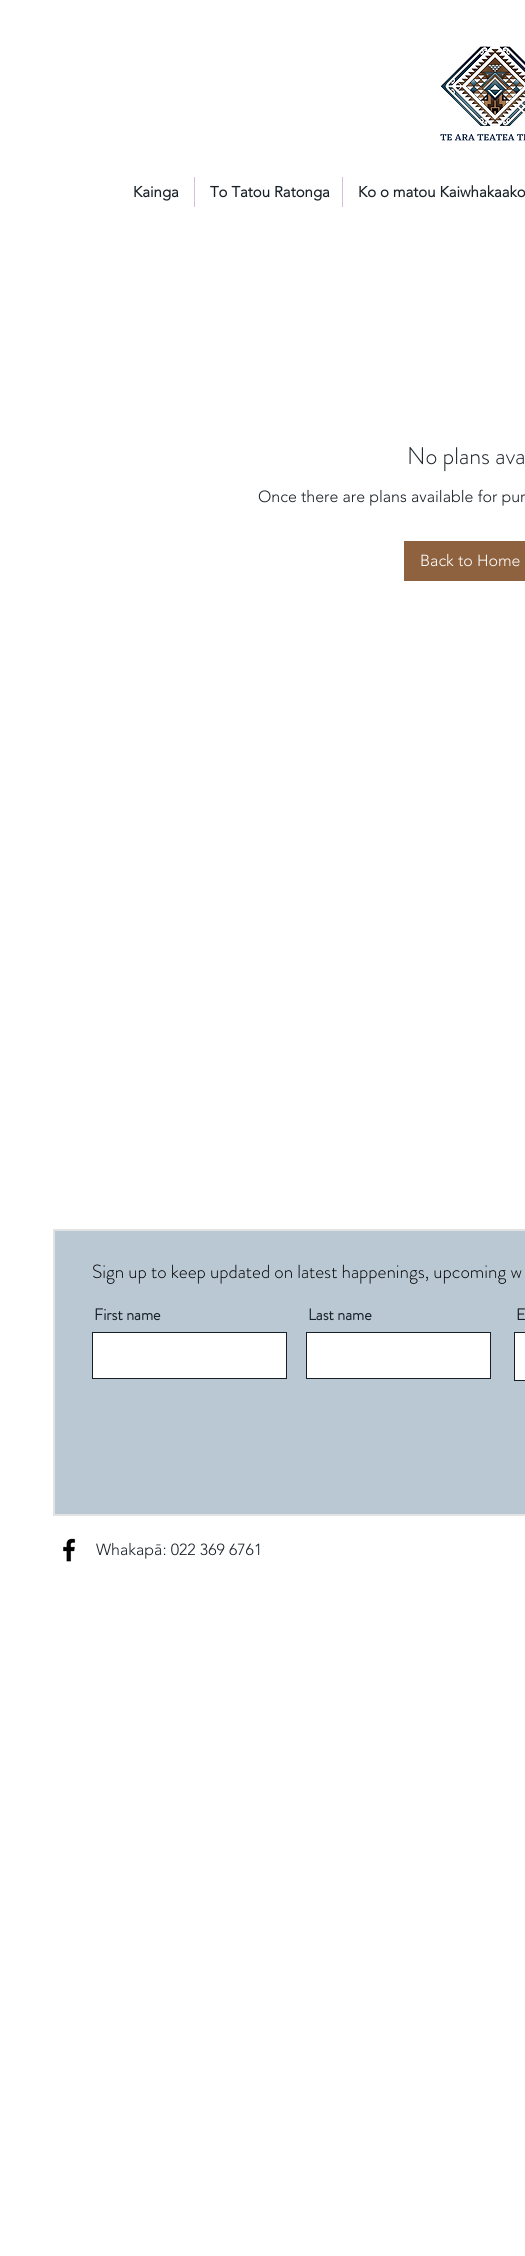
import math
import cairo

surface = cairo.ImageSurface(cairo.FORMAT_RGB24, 525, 2256)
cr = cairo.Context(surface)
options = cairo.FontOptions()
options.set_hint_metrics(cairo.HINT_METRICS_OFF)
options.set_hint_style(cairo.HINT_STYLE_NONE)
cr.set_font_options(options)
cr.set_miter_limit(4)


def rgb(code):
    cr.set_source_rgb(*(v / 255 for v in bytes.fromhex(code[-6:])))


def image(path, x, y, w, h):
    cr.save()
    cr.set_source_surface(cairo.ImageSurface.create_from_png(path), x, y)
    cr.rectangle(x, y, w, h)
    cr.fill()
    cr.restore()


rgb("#ffffff")
cr.paint()
image("img/1.png", 440, 46, 85, 95)
for x, y, w, h, color in [
    (194, 177, 1, 30, "#d8bde2"),
    (342, 177, 1, 30, "#d8bde2"),
    (404, 541, 121, 40, "#8e623e"),
]:
    rgb(color)
    cr.rectangle(x, y, w, h)
    cr.fill()
rgb("#bac8d4")
cr.rectangle(54, 1230, 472, 285)
cr.fill_preserve()
rgb("#e3e3e3")
cr.stroke()
rgb("#ffffff")
cr.rectangle(92.5, 1332.5, 194, 46)
cr.fill_preserve()
rgb("#182027")
cr.set_line_width(1)
cr.stroke()
rgb("#ffffff")
cr.rectangle(306.5, 1332.5, 184, 46)
cr.fill_preserve()
rgb("#182027")
cr.stroke()
rgb("#ffffff")
cr.rectangle(514.5, 1332.5, 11, 48)
cr.fill_preserve()
rgb("#182027")
cr.stroke()
image("img/2.png", 63, 1538, 13, 24)
cr.select_font_face("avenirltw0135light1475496", cairo.FONT_SLANT_NORMAL, cairo.FONT_WEIGHT_BOLD)
cr.set_font_size(15)
for x, y, s in [
    (133, 197, "Kainga"),
    (210, 197, "To Tatou Ratonga"),
    (358, 197, "Ko o matou Kaiwhakaako"),
]:
    cr.move_to(x, y)
    cr.show_text(s)
cr.select_font_face("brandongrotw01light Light")
cr.set_font_size(24)
cr.move_to(407, 464)
cr.show_text("No plans ava")
cr.select_font_face("avenirltw0135light1475496 Light")
cr.set_font_size(16)
cr.move_to(258, 502)
cr.show_text("Once there are plans available for pur")
rgb("#ffffff")
cr.move_to(420, 566)
cr.show_text("Back to Home")
cr.select_font_face("brandongrotw01light Light")
cr.set_font_size(19)
rgb("#000000")
cr.move_to(92, 1278)
cr.show_text("Sign up to keep updated on latest happenings, upcoming w")
cr.select_font_face("brandongrotw01light", cairo.FONT_SLANT_NORMAL, cairo.FONT_WEIGHT_BOLD)
cr.set_font_size(16)
rgb("#182027")
for x, y, s in [
    (94, 1320, "First name"),
    (308, 1320, "Last name"),
    (516, 1320, "E"),
]:
    cr.move_to(x, y)
    cr.show_text(s)
cr.select_font_face("avenirltw0135light1475496 Light")
cr.move_to(96, 1555)
cr.show_text("Whakapā: 022 369 6761")
surface.write_to_png("page.png")
